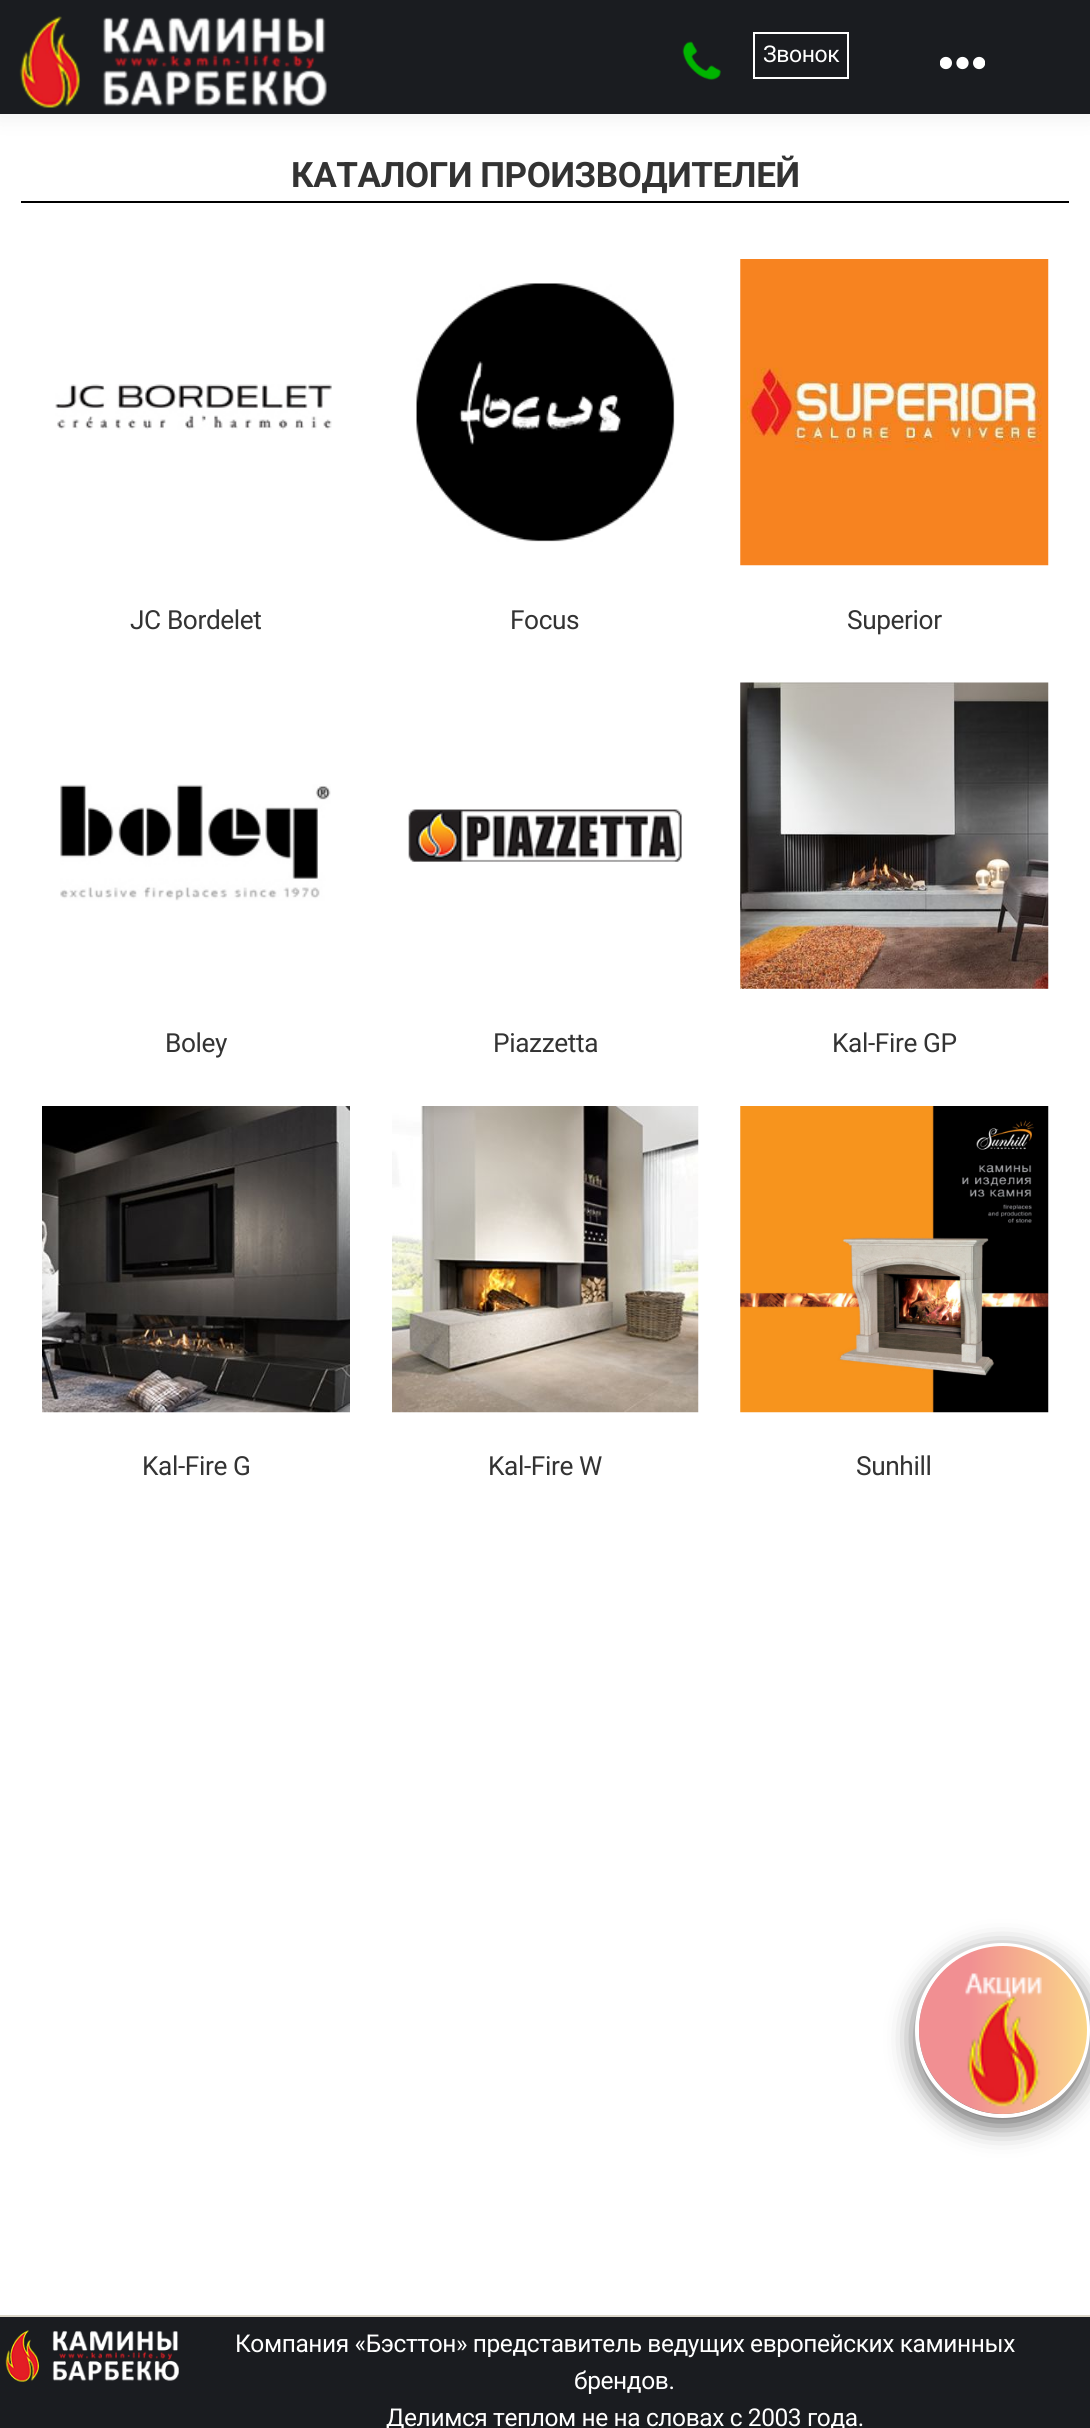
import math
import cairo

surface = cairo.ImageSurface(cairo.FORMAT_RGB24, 1090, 2428)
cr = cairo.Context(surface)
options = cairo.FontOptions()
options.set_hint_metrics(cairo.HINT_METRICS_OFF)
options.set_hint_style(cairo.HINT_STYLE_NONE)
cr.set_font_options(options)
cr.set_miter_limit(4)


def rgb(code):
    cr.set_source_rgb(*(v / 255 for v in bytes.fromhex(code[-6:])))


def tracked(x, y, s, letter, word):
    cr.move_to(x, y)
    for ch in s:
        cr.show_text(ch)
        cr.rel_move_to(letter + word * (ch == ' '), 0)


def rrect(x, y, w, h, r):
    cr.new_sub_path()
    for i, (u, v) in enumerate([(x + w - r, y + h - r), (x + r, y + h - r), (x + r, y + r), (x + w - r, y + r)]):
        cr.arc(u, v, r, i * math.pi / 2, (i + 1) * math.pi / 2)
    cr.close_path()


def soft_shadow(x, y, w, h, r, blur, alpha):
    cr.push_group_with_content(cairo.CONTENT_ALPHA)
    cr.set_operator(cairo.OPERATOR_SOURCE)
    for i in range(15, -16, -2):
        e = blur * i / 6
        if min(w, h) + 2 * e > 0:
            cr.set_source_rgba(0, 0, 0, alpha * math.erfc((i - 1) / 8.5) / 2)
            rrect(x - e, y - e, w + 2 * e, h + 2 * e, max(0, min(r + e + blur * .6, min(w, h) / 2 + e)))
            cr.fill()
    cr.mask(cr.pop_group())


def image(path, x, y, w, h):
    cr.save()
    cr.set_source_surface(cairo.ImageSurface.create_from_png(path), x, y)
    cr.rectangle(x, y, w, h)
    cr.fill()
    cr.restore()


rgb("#ffffff")
cr.paint()
rgb("#000000")
soft_shadow(-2, -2, 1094, 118, 0, 13, 0.07)
rgb("#1a1c20")
cr.rectangle(0, 0, 1090, 114)
cr.fill()
image("img/1.png", 19, 16, 308, 92)
image("img/2.png", 682, 41, 39, 39)
cr.rectangle(754, 33, 94, 45)
rgb("#ffffff")
cr.stroke()
image("img/3.png", 940, 56, 45, 14)
rgb("#000000")
cr.rectangle(21, 201, 1048, 2)
cr.fill()
image("img/4.png", 55, 384, 277, 46)
image("img/5.png", 416, 283, 259, 259)
image("img/6.png", 740, 259, 309, 307)
image("img/7.png", 60, 784, 271, 117)
image("img/8.png", 408, 809, 274, 53)
image("img/9.png", 740, 682, 309, 307)
image("img/10.png", 42, 1106, 308, 307)
image("img/11.png", 392, 1106, 307, 307)
image("img/12.png", 740, 1106, 309, 307)
rgb("#1a1c20")
cr.rectangle(0, 2317, 1090, 111)
cr.fill()
rgb("#dcd7ca")
cr.rectangle(0, 2315, 1090, 2)
cr.fill()
rgb("#000000")
soft_shadow(915, 1951, 175, 175, 87.5, 13, 0.6)
cr.arc(1002.5, 2030.5, 85.5, 0, 2 * math.pi)
rgb("#ffffff")
cr.set_line_width(4)
cr.stroke()
gradient = cairo.LinearGradient(919, 2034, 1087, 2034)
gradient.add_color_stop_rgba(0.3, 0.945, 0.561, 0.573, 1)
gradient.add_color_stop_rgba(1, 0.984, 0.843, 0.537, 1)
cr.set_source(gradient)
cr.arc(1003, 2030, 84, 0, 2 * math.pi)
cr.fill()
image("img/13.png", 965, 1973, 77, 134)
image("img/14.png", 5, 2330, 174, 52)
cr.select_font_face("Roboto")
cr.set_font_size(23)
rgb("#ffffff")
tracked(763, 62, "Звонок", -0.4, 0)
cr.select_font_face("Roboto", cairo.FONT_SLANT_NORMAL, cairo.FONT_WEIGHT_BOLD)
cr.set_font_size(35)
rgb("#333333")
tracked(291, 187, "КАТАЛОГИ ПРОИЗВОДИТЕЛЕЙ", -0.4, 0)
cr.select_font_face("Roboto")
cr.set_font_size(26.25)
for x, y, s in [
    (130, 629, "JC Bordelet"),
    (510, 629, "Focus"),
    (847, 629, "Superior"),
    (165, 1052, "Boley"),
    (493, 1052, "Piazzetta"),
    (832, 1052, "Kal-Fire GP"),
    (142, 1475, "Kal-Fire G"),
    (488, 1475, "Kal-Fire W"),
    (856, 1475, "Sunhill"),
]:
    tracked(x, y, s, -0.4, 0)
cr.set_font_size(24.5)
rgb("#ffffff")
for x, y, s in [
    (235, 2352, "Компания «Бэсттон» представитель ведущих европейских каминных"),
    (574, 2389, "брендов."),
    (386, 2426, "Делимся теплом не на словах с 2003 года."),
]:
    tracked(x, y, s, -0.4, 0)
surface.write_to_png("page.png")
